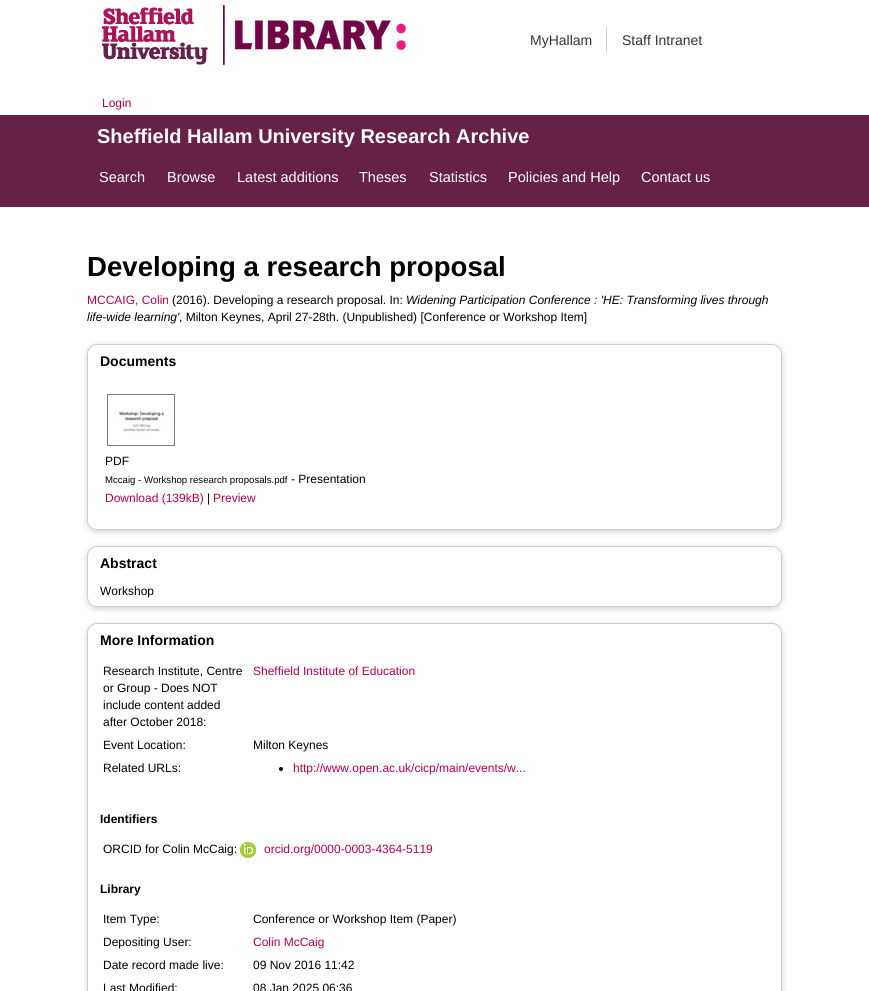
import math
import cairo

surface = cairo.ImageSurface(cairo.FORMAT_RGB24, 869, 991)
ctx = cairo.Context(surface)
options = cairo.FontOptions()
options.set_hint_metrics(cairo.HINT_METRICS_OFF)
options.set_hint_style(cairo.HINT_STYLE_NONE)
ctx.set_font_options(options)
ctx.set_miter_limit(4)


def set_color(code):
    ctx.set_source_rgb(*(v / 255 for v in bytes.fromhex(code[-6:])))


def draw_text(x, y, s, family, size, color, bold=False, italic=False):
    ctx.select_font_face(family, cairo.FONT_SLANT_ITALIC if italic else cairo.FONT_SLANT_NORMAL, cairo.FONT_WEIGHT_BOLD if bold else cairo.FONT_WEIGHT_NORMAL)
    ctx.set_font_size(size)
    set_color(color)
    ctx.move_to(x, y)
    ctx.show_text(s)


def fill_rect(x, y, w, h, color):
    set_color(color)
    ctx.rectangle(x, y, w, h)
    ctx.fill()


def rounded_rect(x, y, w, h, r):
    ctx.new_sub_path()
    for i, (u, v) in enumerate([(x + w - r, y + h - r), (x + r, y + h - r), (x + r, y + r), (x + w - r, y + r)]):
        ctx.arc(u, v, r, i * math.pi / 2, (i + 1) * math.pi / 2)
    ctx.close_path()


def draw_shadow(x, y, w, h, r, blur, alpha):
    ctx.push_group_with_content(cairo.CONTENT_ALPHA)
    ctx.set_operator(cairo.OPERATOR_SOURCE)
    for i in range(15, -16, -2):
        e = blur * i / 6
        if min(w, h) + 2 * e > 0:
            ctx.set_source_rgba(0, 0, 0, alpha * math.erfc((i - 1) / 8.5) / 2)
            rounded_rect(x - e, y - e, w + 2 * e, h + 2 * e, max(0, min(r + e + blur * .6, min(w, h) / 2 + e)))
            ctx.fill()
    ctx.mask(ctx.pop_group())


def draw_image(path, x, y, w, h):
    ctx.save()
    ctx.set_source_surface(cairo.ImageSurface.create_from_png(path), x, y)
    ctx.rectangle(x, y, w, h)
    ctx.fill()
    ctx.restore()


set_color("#ffffff")
ctx.paint()
draw_image("assets/img1.png", 102, 7, 106, 58)
draw_image("assets/img2.png", 223, 5, 183, 60)
draw_text(530, 45, "MyHallam", "Liberation Sans", 14, "#333333")
fill_rect(606, 27, 1, 25, "#cccccc")
draw_text(622, 45, "Staff Intranet", "Liberation Sans", 14, "#333333")
draw_text(102, 107, "Login", "Liberation Sans", 12, "#ba0046")
fill_rect(0, 115, 869, 92, "#672146")
draw_text(97, 143, "Sheffield Hallam University Research Archive", "Liberation Sans", 20, "#ffffff", bold=True)
draw_text(99, 182, "Search", "Liberation Sans", 14.5, "#ffffff")
draw_text(167, 182, "Browse", "Liberation Sans", 14.5, "#ffffff")
draw_text(237, 182, "Latest additions", "Liberation Sans", 14.5, "#ffffff")
draw_text(359, 182, "Theses", "Liberation Sans", 14.5, "#ffffff")
draw_text(429, 182, "Statistics", "Liberation Sans", 14.5, "#ffffff")
draw_text(508, 182, "Policies and Help", "Liberation Sans", 14.5, "#ffffff")
draw_text(641, 182, "Contact us", "Liberation Sans", 14.5, "#ffffff")
draw_text(87, 276, "Developing a research proposal", "Liberation Sans", 27.6, "#000000", bold=True)
draw_text(87, 304, "MCCAIG, Colin", "Liberation Sans", 12, "#ba0046")
draw_text(172, 304, "(2016). Developing a research proposal. In:", "Liberation Sans", 12, "#000000")
draw_text(406, 304, "Widening Participation Conference : 'HE: Transforming lives through", "Liberation Sans", 12, "#000000", italic=True)
draw_text(87, 321, "life-wide learning'", "Liberation Sans", 12, "#000000", italic=True)
draw_text(179, 321, ", Milton Keynes, April 27-28th. (Unpublished) [Conference or Workshop Item]", "Liberation Sans", 12, "#000000")
ctx.save()
ctx.set_fill_rule(cairo.FILL_RULE_EVEN_ODD)
ctx.new_path()
ctx.move_to(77, 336)
ctx.line_to(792, 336)
ctx.line_to(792, 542)
ctx.line_to(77, 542)
ctx.close_path()
ctx.move_to(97, 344)
ctx.line_to(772, 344)
ctx.curve_to(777.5, 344, 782, 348.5, 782, 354)
ctx.line_to(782, 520)
ctx.curve_to(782, 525.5, 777.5, 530, 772, 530)
ctx.line_to(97, 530)
ctx.curve_to(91.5, 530, 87, 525.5, 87, 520)
ctx.line_to(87, 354)
ctx.curve_to(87, 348.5, 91.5, 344, 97, 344)
ctx.close_path()
ctx.clip()
set_color("#646464")
draw_shadow(87, 346, 695, 186, 10, 3, 0.3)
ctx.restore()
rounded_rect(87.5, 344.5, 694, 185, 9.5)
set_color("#cccccc")
ctx.set_line_width(1)
ctx.stroke()
draw_text(100, 366, "Documents", "Liberation Sans", 14, "#000000", bold=True)
draw_image("assets/img3.png", 107, 394, 68, 52)
draw_text(105, 465, "PDF", "Liberation Sans", 12, "#000000")
draw_text(105, 483, "Mccaig - Workshop research proposals.pdf", "Liberation Sans", 9.6, "#000000")
draw_text(291, 483, "- Presentation", "Liberation Sans", 12, "#000000")
draw_text(105, 502, "Download (139kB)", "Liberation Sans", 12, "#ba0046")
draw_text(207, 502, "|", "Liberation Sans", 12, "#000000")
draw_text(213, 502, "Preview", "Liberation Sans", 12, "#ba0046")
ctx.save()
ctx.set_fill_rule(cairo.FILL_RULE_EVEN_ODD)
ctx.new_path()
ctx.move_to(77, 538)
ctx.line_to(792, 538)
ctx.line_to(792, 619)
ctx.line_to(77, 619)
ctx.close_path()
ctx.move_to(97, 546)
ctx.line_to(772, 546)
ctx.curve_to(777.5, 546, 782, 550.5, 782, 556)
ctx.line_to(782, 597)
ctx.curve_to(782, 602.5, 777.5, 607, 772, 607)
ctx.line_to(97, 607)
ctx.curve_to(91.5, 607, 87, 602.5, 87, 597)
ctx.line_to(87, 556)
ctx.curve_to(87, 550.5, 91.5, 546, 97, 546)
ctx.close_path()
ctx.clip()
set_color("#646464")
draw_shadow(87, 548, 695, 61, 10, 3, 0.3)
ctx.restore()
rounded_rect(87.5, 546.5, 694, 60, 9.5)
set_color("#cccccc")
ctx.stroke()
draw_text(100, 568, "Abstract", "Liberation Sans", 14, "#000000", bold=True)
draw_text(100, 595, "Workshop", "Liberation Sans", 12, "#000000")
ctx.save()
ctx.set_fill_rule(cairo.FILL_RULE_EVEN_ODD)
ctx.new_path()
ctx.move_to(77, 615)
ctx.line_to(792, 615)
ctx.line_to(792, 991)
ctx.line_to(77, 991)
ctx.close_path()
ctx.move_to(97, 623)
ctx.line_to(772, 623)
ctx.curve_to(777.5, 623, 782, 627.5, 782, 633)
ctx.line_to(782, 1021)
ctx.curve_to(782, 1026.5, 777.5, 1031, 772, 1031)
ctx.line_to(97, 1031)
ctx.curve_to(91.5, 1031, 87, 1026.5, 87, 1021)
ctx.line_to(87, 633)
ctx.curve_to(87, 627.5, 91.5, 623, 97, 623)
ctx.close_path()
ctx.clip()
set_color("#646464")
draw_shadow(87, 625, 695, 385, 10, 3, 0.3)
ctx.restore()
rounded_rect(87.5, 623.5, 694, 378, 9.5)
set_color("#cccccc")
ctx.stroke()
draw_text(100, 645, "More Information", "Liberation Sans", 14, "#000000", bold=True)
draw_text(103, 675, "Research Institute, Centre", "Liberation Sans", 12, "#000000")
draw_text(103, 692, "or Group - Does NOT", "Liberation Sans", 12, "#000000")
draw_text(103, 709, "include content added", "Liberation Sans", 12, "#000000")
draw_text(103, 726, "after October 2018:", "Liberation Sans", 12, "#000000")
draw_text(253, 675, "Sheffield Institute of Education", "Liberation Sans", 12, "#ba0046")
draw_text(103, 749, "Event Location:", "Liberation Sans", 12, "#000000")
draw_text(253, 749, "Milton Keynes", "Liberation Sans", 12, "#000000")
draw_text(103, 772, "Related URLs:", "Liberation Sans", 12, "#000000")
ctx.new_path()
ctx.arc(281, 769, 2, 0, 2 * math.pi)
ctx.fill()
draw_text(293, 772, "http://www.open.ac.uk/cicp/main/events/w...", "Liberation Sans", 12, "#ba0046")
draw_text(100, 823, "Identifiers", "Liberation Sans", 12, "#000000", bold=True)
draw_text(103, 853, "ORCID for Colin McCaig:", "Liberation Sans", 12, "#000000")
draw_image("assets/img4.png", 240, 842, 16, 16)
draw_text(264, 853, "orcid.org/0000-0003-4364-5119", "Liberation Sans", 12, "#ba0046")
draw_text(100, 893, "Library", "Liberation Sans", 12, "#000000", bold=True)
draw_text(103, 923, "Item Type:", "Liberation Sans", 12, "#000000")
draw_text(253, 923, "Conference or Workshop Item (Paper)", "Liberation Sans", 12, "#000000")
draw_text(103, 946, "Depositing User:", "Liberation Sans", 12, "#000000")
draw_text(253, 946, "Colin McCaig", "Liberation Sans", 12, "#ba0046")
draw_text(103, 969, "Date record made live:", "Liberation Sans", 12, "#000000")
draw_text(253, 969, "09 Nov 2016 11:42", "Liberation Sans", 12, "#000000")
draw_text(103, 992, "Last Modified:", "Liberation Sans", 12, "#000000")
draw_text(253, 992, "08 Jan 2025 06:36", "Liberation Sans", 12, "#000000")
surface.write_to_png("output.png")
